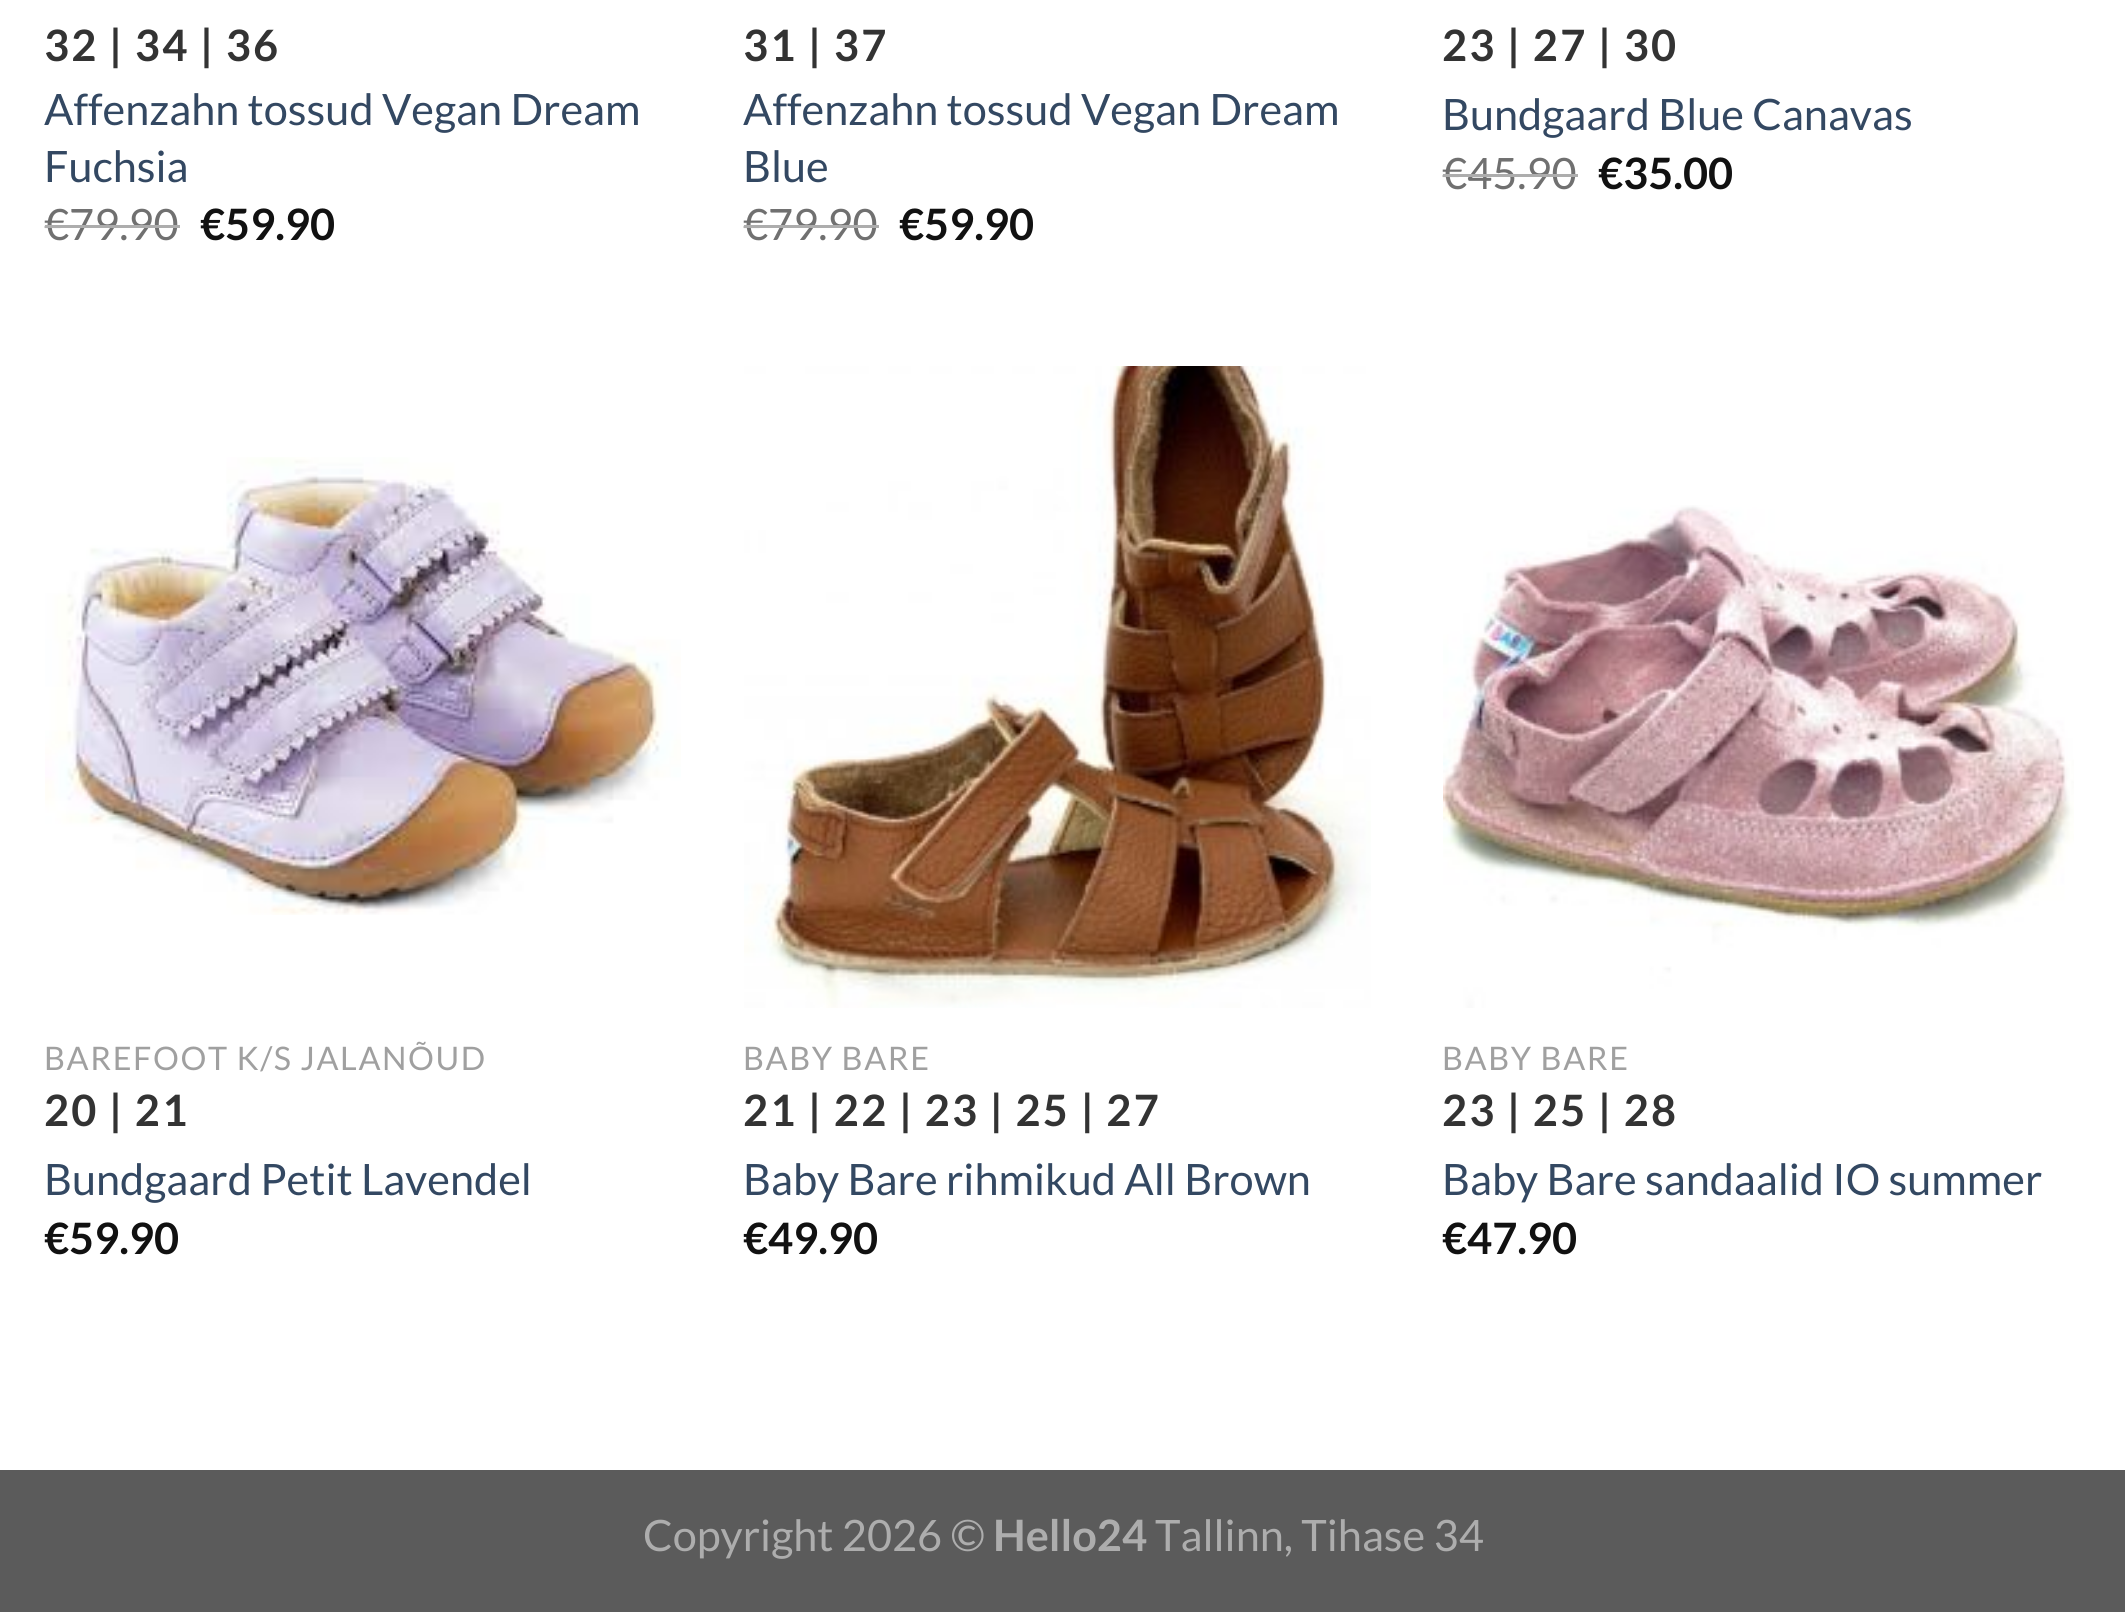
import math
import cairo

surface = cairo.ImageSurface(cairo.FORMAT_RGB24, 2125, 1612)
ctx = cairo.Context(surface)
options = cairo.FontOptions()
options.set_hint_metrics(cairo.HINT_METRICS_OFF)
options.set_hint_style(cairo.HINT_STYLE_NONE)
ctx.set_font_options(options)
ctx.set_miter_limit(4)


def set_color(code):
    ctx.set_source_rgb(*(v / 255 for v in bytes.fromhex(code[-6:])))


def draw_text(x, y, s, family, size, color, bold=False, italic=False):
    ctx.select_font_face(family, cairo.FONT_SLANT_ITALIC if italic else cairo.FONT_SLANT_NORMAL, cairo.FONT_WEIGHT_BOLD if bold else cairo.FONT_WEIGHT_NORMAL)
    ctx.set_font_size(size)
    set_color(color)
    ctx.move_to(x, y)
    ctx.show_text(s)


def draw_spaced(x, y, s, letter, word):
    ctx.move_to(x, y)
    for ch in s:
        ctx.show_text(ch)
        ctx.rel_move_to(letter + word * (ch == ' '), 0)


def fill_rect(x, y, w, h, color):
    set_color(color)
    ctx.rectangle(x, y, w, h)
    ctx.fill()


def draw_image(path, x, y, w, h):
    ctx.save()
    ctx.set_source_surface(cairo.ImageSurface.create_from_png(path), x, y)
    ctx.rectangle(x, y, w, h)
    ctx.fill()
    ctx.restore()


set_color("#ffffff")
ctx.paint()
ctx.select_font_face("Lato", cairo.FONT_SLANT_NORMAL, cairo.FONT_WEIGHT_BOLD)
ctx.set_font_size(43.25)
set_color("#333333")
draw_spaced(44, 61, "32 | 34 | 36", 2.2, 0)
draw_text(44, 125, "Affenzahn tossud Vegan Dream", "Lato", 43.25, "#334862")
draw_text(44, 182, "Fuchsia", "Lato", 43.25, "#334862")
draw_text(44, 240, "€79.90", "Lato", 43.25, "#707070")
fill_rect(45, 225, 135, 3, "#adadad")
draw_text(200, 240, "€59.90", "Lato", 43.25, "#111111", bold=True)
set_color("#333333")
draw_spaced(743, 61, "31 | 37", 2.2, 0)
draw_text(743, 125, "Affenzahn tossud Vegan Dream", "Lato", 43.25, "#334862")
draw_text(743, 182, "Blue", "Lato", 43.25, "#334862")
draw_text(743, 240, "€79.90", "Lato", 43.25, "#707070")
fill_rect(744, 225, 135, 3, "#adadad")
draw_text(899, 240, "€59.90", "Lato", 43.25, "#111111", bold=True)
set_color("#333333")
draw_spaced(1442, 61, "23 | 27 | 30", 2.2, 0)
draw_text(1442, 130, "Bundgaard Blue Canavas", "Lato", 43.25, "#334862")
draw_text(1442, 189, "€45.90", "Lato", 43.25, "#707070")
fill_rect(1443, 174, 135, 3, "#adadad")
draw_text(1598, 189, "€35.00", "Lato", 43.25, "#111111", bold=True)
draw_image("assets/img1.png", 45, 457, 636, 458)
ctx.select_font_face("Lato")
ctx.set_font_size(32.4)
set_color("#a0a0a0")
draw_spaced(44, 1070, "BAREFOOT K/S JALANÕUD", 1.6, 0)
ctx.select_font_face("Lato", cairo.FONT_SLANT_NORMAL, cairo.FONT_WEIGHT_BOLD)
ctx.set_font_size(43.25)
set_color("#333333")
draw_spaced(44, 1126, "20 | 21", 2.2, 0)
draw_text(44, 1195, "Bundgaard Petit Lavendel", "Lato", 43.25, "#334862")
draw_text(44, 1254, "€59.90", "Lato", 43.25, "#111111", bold=True)
draw_image("assets/img2.png", 744, 366, 627, 642)
ctx.select_font_face("Lato")
ctx.set_font_size(32.4)
set_color("#a0a0a0")
draw_spaced(743, 1070, "BABY BARE", 1.6, 0)
ctx.select_font_face("Lato", cairo.FONT_SLANT_NORMAL, cairo.FONT_WEIGHT_BOLD)
ctx.set_font_size(43.25)
set_color("#333333")
draw_spaced(743, 1126, "21 | 22 | 23 | 25 | 27", 2.2, 0)
draw_text(743, 1195, "Baby Bare rihmikud All Brown", "Lato", 43.25, "#334862")
draw_text(743, 1254, "€49.90", "Lato", 43.25, "#111111", bold=True)
draw_image("assets/img3.png", 1443, 505, 631, 503)
ctx.select_font_face("Lato")
ctx.set_font_size(32.4)
set_color("#a0a0a0")
draw_spaced(1442, 1070, "BABY BARE", 1.6, 0)
ctx.select_font_face("Lato", cairo.FONT_SLANT_NORMAL, cairo.FONT_WEIGHT_BOLD)
ctx.set_font_size(43.25)
set_color("#333333")
draw_spaced(1442, 1126, "23 | 25 | 28", 2.2, 0)
draw_text(1442, 1195, "Baby Bare sandaalid IO summer", "Lato", 43.25, "#334862")
draw_text(1442, 1254, "€47.90", "Lato", 43.25, "#111111", bold=True)
fill_rect(0, 1470, 2125, 142, "#5b5b5b")
draw_text(643, 1551, "Copyright 2026 ©", "Lato", 43.25, "#adadad")
draw_text(993, 1551, "Hello24", "Lato", 43.25, "#adadad", bold=True)
draw_text(1155, 1551, "Tallinn, Tihase 34", "Lato", 43.25, "#adadad")
surface.write_to_png("output.png")
